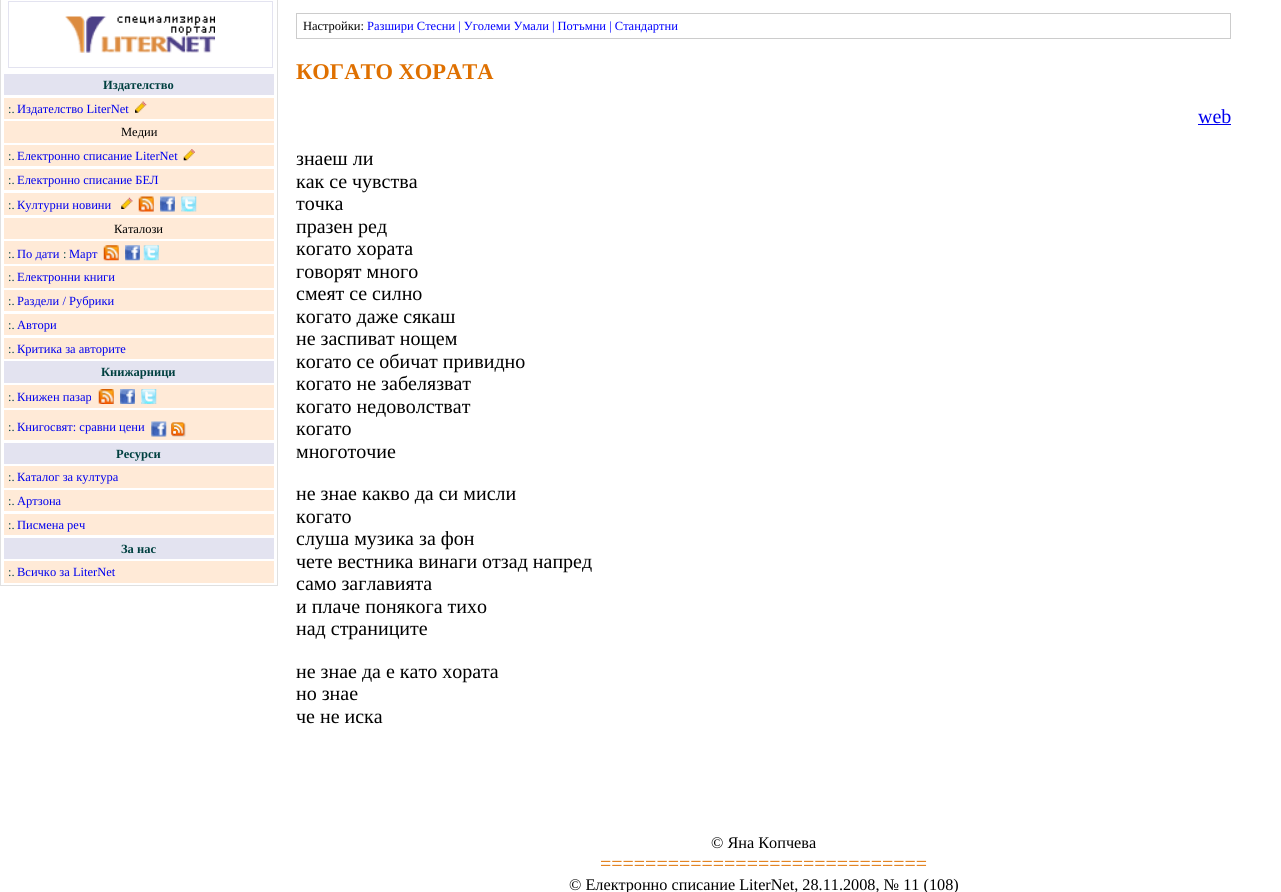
import math
import cairo

surface = cairo.ImageSurface(cairo.FORMAT_RGB24, 1281, 892)
ctx = cairo.Context(surface)
options = cairo.FontOptions()
options.set_hint_metrics(cairo.HINT_METRICS_OFF)
options.set_hint_style(cairo.HINT_STYLE_NONE)
ctx.set_font_options(options)
ctx.set_miter_limit(4)


def set_color(code):
    ctx.set_source_rgb(*(v / 255 for v in bytes.fromhex(code[-6:])))


def draw_text(x, y, s, family, size, color, bold=False, italic=False):
    ctx.select_font_face(family, cairo.FONT_SLANT_ITALIC if italic else cairo.FONT_SLANT_NORMAL, cairo.FONT_WEIGHT_BOLD if bold else cairo.FONT_WEIGHT_NORMAL)
    ctx.set_font_size(size)
    set_color(color)
    ctx.move_to(x, y)
    ctx.show_text(s)


def fill_rect(x, y, w, h, color):
    set_color(color)
    ctx.rectangle(x, y, w, h)
    ctx.fill()


def draw_image(path, x, y, w, h):
    ctx.save()
    ctx.set_source_surface(cairo.ImageSurface.create_from_png(path), x, y)
    ctx.rectangle(x, y, w, h)
    ctx.fill()
    ctx.restore()


set_color("#ffffff")
ctx.paint()
ctx.rectangle(0.5, -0.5, 277, 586)
set_color("#e0e0e0")
ctx.set_line_width(1)
ctx.stroke()
ctx.rectangle(8.5, 1.5, 264, 66)
set_color("#e3e3f0")
ctx.stroke()
draw_image("assets/img1.png", 65, 16, 150, 37)
fill_rect(4, 74, 270, 21, "#e3e3f0")
draw_text(103, 89, "Издателство", "Liberation Serif", 12.5, "#004040", bold=True)
fill_rect(4, 98, 270, 21, "#ffead7")
draw_text(8, 113, ":.", "Liberation Serif", 12.5, "#004040")
draw_text(17, 113, "Издателство LiterNet", "Liberation Serif", 12.5, "#0000ee")
draw_image("assets/img2.png", 135, 101, 12, 12)
fill_rect(4, 121, 270, 22, "#ffead7")
draw_text(121, 136, "Медии", "Liberation Serif", 12.5, "#000000")
fill_rect(4, 145, 270, 21, "#ffead7")
draw_text(8, 160, ":.", "Liberation Serif", 12.5, "#004040")
draw_text(17, 160, "Електронно списание LiterNet", "Liberation Serif", 12.5, "#0000ee")
draw_image("assets/img3.png", 183, 149, 12, 12)
fill_rect(4, 169, 270, 21, "#ffead7")
draw_text(8, 184, ":.", "Liberation Serif", 12.5, "#004040")
draw_text(17, 184, "Електронно списание БЕЛ", "Liberation Serif", 12.5, "#0000ee")
fill_rect(4, 193, 270, 22, "#ffead7")
draw_text(8, 209, ":.", "Liberation Serif", 12.5, "#004040")
draw_text(17, 209, "Културни новини", "Liberation Serif", 12.5, "#0000ee")
draw_image("assets/img4.png", 121, 197, 12, 12)
draw_image("assets/img5.png", 138, 196, 16, 16)
draw_image("assets/img6.png", 160, 196, 15, 16)
draw_image("assets/img7.png", 181, 196, 16, 16)
fill_rect(4, 218, 270, 21, "#ffead7")
draw_text(114, 233, "Каталози", "Liberation Serif", 12.5, "#000000")
fill_rect(4, 241, 270, 23, "#ffead7")
draw_text(8, 258, ":.", "Liberation Serif", 12.5, "#004040")
draw_text(17, 258, "По дати", "Liberation Serif", 12.5, "#0000ee")
draw_text(63, 258, ":", "Liberation Serif", 12.5, "#004040")
draw_text(69, 258, "Март", "Liberation Serif", 12.5, "#0000ee")
draw_image("assets/img8.png", 103, 245, 16, 16)
draw_image("assets/img9.png", 125, 245, 15, 16)
draw_image("assets/img10.png", 143, 245, 16, 16)
fill_rect(4, 266, 270, 22, "#ffead7")
draw_text(8, 281, ":.", "Liberation Serif", 12.5, "#004040")
draw_text(17, 281, "Електронни книги", "Liberation Serif", 12.5, "#0000ee")
fill_rect(4, 290, 270, 21, "#ffead7")
draw_text(8, 305, ":.", "Liberation Serif", 12.5, "#004040")
draw_text(17, 305, "Раздели / Рубрики", "Liberation Serif", 12.5, "#0000ee")
fill_rect(4, 314, 270, 21, "#ffead7")
draw_text(8, 329, ":.", "Liberation Serif", 12.5, "#004040")
draw_text(17, 329, "Автори", "Liberation Serif", 12.5, "#0000ee")
fill_rect(4, 338, 270, 21, "#ffead7")
draw_text(8, 353, ":.", "Liberation Serif", 12.5, "#004040")
draw_text(17, 353, "Критика за авторите", "Liberation Serif", 12.5, "#0000ee")
fill_rect(4, 361, 270, 22, "#e3e3f0")
draw_text(101, 376, "Книжарници", "Liberation Serif", 12.5, "#004040", bold=True)
fill_rect(4, 385, 270, 23, "#ffead7")
draw_text(8, 401, ":.", "Liberation Serif", 12.5, "#004040")
draw_text(17, 401, "Книжен пазар", "Liberation Serif", 12.5, "#0000ee")
draw_image("assets/img11.png", 98, 389, 16, 15)
draw_image("assets/img12.png", 120, 389, 15, 15)
draw_image("assets/img13.png", 141, 389, 16, 15)
fill_rect(4, 410, 270, 30, "#ffead7")
draw_text(8, 431, ":.", "Liberation Serif", 12.5, "#004040")
draw_text(17, 431, "Книгосвят: сравни цени", "Liberation Serif", 12.5, "#0000ee")
draw_image("assets/img14.png", 151, 421, 16, 16)
draw_image("assets/img15.png", 171, 422, 15, 15)
fill_rect(4, 443, 270, 21, "#e3e3f0")
draw_text(116, 458, "Ресурси", "Liberation Serif", 12.5, "#004040", bold=True)
fill_rect(4, 466, 270, 22, "#ffead7")
draw_text(8, 481, ":.", "Liberation Serif", 12.5, "#004040")
draw_text(17, 481, "Каталог за култура", "Liberation Serif", 12.5, "#0000ee")
fill_rect(4, 490, 270, 21, "#ffead7")
draw_text(8, 505, ":.", "Liberation Serif", 12.5, "#004040")
draw_text(17, 505, "Артзона", "Liberation Serif", 12.5, "#0000ee")
fill_rect(4, 514, 270, 21, "#ffead7")
draw_text(8, 529, ":.", "Liberation Serif", 12.5, "#004040")
draw_text(17, 529, "Писмена реч", "Liberation Serif", 12.5, "#0000ee")
fill_rect(4, 538, 270, 21, "#e3e3f0")
draw_text(121, 553, "За нас", "Liberation Serif", 12.5, "#004040", bold=True)
fill_rect(4, 561, 270, 22, "#ffead7")
draw_text(8, 576, ":.", "Liberation Serif", 12.5, "#004040")
draw_text(17, 576, "Всичко за LiterNet", "Liberation Serif", 12.5, "#0000ee")
ctx.rectangle(296.5, 13.5, 934, 25)
set_color("#cccccc")
ctx.stroke()
draw_text(303, 30, "Настройки:", "Liberation Serif", 12.5, "#000000")
draw_text(367, 30, "Разшири Стесни | Уголеми Умали | Потъмни | Стандартни", "Liberation Serif", 12.5, "#0000ff")
draw_text(296, 79, "КОГАТО ХОРАТА", "Liberation Serif", 22.5, "#df7000", bold=True)
draw_text(1198, 123, "web", "Liberation Serif", 20, "#0000ee")
fill_rect(1198, 124, 33, 1, "#0000ee")
draw_text(296, 165, "знаеш ли", "Liberation Serif", 20, "#000000")
draw_text(296, 188, "как се чувства", "Liberation Serif", 20, "#000000")
draw_text(296, 210, "точка", "Liberation Serif", 20, "#000000")
draw_text(296, 233, "празен ред", "Liberation Serif", 20, "#000000")
draw_text(296, 255, "когато хората", "Liberation Serif", 20, "#000000")
draw_text(296, 278, "говорят много", "Liberation Serif", 20, "#000000")
draw_text(296, 300, "смеят се силно", "Liberation Serif", 20, "#000000")
draw_text(296, 323, "когато даже сякаш", "Liberation Serif", 20, "#000000")
draw_text(296, 345, "не заспиват нощем", "Liberation Serif", 20, "#000000")
draw_text(296, 368, "когато се обичат привидно", "Liberation Serif", 20, "#000000")
draw_text(296, 390, "когато не забелязват", "Liberation Serif", 20, "#000000")
draw_text(296, 413, "когато недоволстват", "Liberation Serif", 20, "#000000")
draw_text(296, 435, "когато", "Liberation Serif", 20, "#000000")
draw_text(296, 458, "многоточие", "Liberation Serif", 20, "#000000")
draw_text(296, 500, "не знае какво да си мисли", "Liberation Serif", 20, "#000000")
draw_text(296, 523, "когато", "Liberation Serif", 20, "#000000")
draw_text(296, 545, "слуша музика за фон", "Liberation Serif", 20, "#000000")
draw_text(296, 568, "чете вестника винаги отзад напред", "Liberation Serif", 20, "#000000")
draw_text(296, 590, "само заглавията", "Liberation Serif", 20, "#000000")
draw_text(296, 613, "и плаче понякога тихо", "Liberation Serif", 20, "#000000")
draw_text(296, 635, "над страниците", "Liberation Serif", 20, "#000000")
draw_text(296, 678, "не знае да е като хората", "Liberation Serif", 20, "#000000")
draw_text(296, 700, "но знае", "Liberation Serif", 20, "#000000")
draw_text(296, 723, "че не иска", "Liberation Serif", 20, "#000000")
draw_text(711, 848, "© Яна Копчева", "Liberation Serif", 16.25, "#000000")
draw_text(600, 870, "=============================", "Liberation Serif", 20, "#df7000")
draw_text(569, 890, "© Електронно списание LiterNet, 28.11.2008, № 11 (108)", "Liberation Serif", 16.25, "#000000")
surface.write_to_png("output.png")
